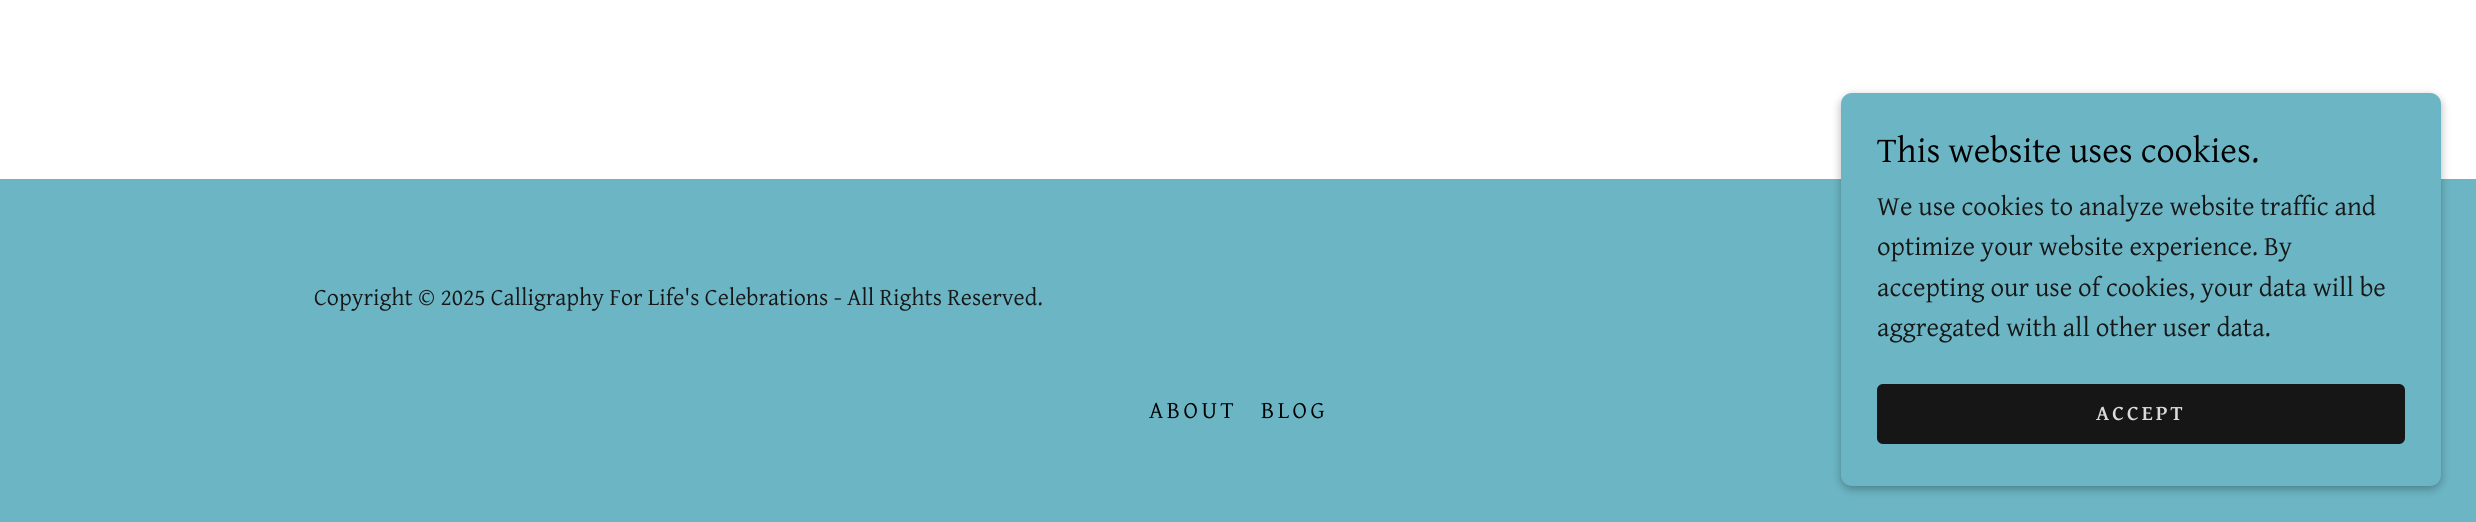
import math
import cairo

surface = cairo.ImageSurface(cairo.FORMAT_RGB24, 2476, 522)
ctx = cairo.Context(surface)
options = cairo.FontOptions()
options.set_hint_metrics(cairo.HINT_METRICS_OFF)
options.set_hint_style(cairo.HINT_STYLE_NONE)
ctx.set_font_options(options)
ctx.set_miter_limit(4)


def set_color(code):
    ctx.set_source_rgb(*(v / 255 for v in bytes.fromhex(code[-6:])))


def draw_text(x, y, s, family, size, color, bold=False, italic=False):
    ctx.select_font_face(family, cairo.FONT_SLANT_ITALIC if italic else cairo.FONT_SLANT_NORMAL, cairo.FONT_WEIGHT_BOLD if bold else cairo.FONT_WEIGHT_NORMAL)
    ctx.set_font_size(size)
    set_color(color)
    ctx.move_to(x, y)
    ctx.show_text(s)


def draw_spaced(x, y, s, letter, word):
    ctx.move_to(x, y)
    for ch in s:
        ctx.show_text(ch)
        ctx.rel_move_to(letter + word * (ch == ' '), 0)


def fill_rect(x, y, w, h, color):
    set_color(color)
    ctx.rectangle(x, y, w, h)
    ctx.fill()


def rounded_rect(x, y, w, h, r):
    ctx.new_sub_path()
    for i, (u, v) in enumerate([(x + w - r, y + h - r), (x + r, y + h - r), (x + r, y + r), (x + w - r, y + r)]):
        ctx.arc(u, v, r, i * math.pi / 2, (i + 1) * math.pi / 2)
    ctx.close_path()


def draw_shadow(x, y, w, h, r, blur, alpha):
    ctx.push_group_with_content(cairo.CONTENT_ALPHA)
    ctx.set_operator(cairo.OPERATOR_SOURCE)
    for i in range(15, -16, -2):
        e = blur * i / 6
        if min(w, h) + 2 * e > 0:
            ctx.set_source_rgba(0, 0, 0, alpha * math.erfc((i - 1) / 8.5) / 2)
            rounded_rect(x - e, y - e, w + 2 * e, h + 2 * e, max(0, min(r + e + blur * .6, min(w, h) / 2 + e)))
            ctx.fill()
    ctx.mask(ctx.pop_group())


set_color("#6cb5c4")
ctx.paint()
fill_rect(0, 0, 2476, 179, "#ffffff")
draw_text(314, 305, "Copyright © 2025 Calligraphy For Life's Celebrations - All Rights Reserved.", "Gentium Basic", 24, "#161717")
set_color("#000000")
draw_spaced(1149, 418, "ABOUT", 3.5, 0)
draw_spaced(1261, 418, "BLOG", 3.5, 0)
set_color("#000000")
draw_shadow(1841, 96, 600, 393, 11, 4.5, 0.3)
set_color("#6cb5c4")
rounded_rect(1841, 93, 600, 393, 11)
ctx.fill()
draw_text(1877, 162, "This website uses cookies.", "Gentium Basic", 36, "#000000")
draw_text(1877, 215, "We use cookies to analyze website traffic and", "Gentium Basic", 27, "#161717")
draw_text(1877, 255, "optimize your website experience. By", "Gentium Basic", 27, "#161717")
draw_text(1877, 296, "accepting our use of cookies, your data will be", "Gentium Basic", 27, "#161717")
draw_text(1877, 336, "aggregated with all other user data.", "Gentium Basic", 27, "#161717")
set_color("#161616")
rounded_rect(1877, 384, 528, 60, 6)
ctx.fill()
ctx.select_font_face("Gentium Basic", cairo.FONT_SLANT_NORMAL, cairo.FONT_WEIGHT_BOLD)
ctx.set_font_size(21)
set_color("#dbdbdb")
draw_spaced(2096, 420, "ACCEPT", 3, 0)
surface.write_to_png("output.png")
